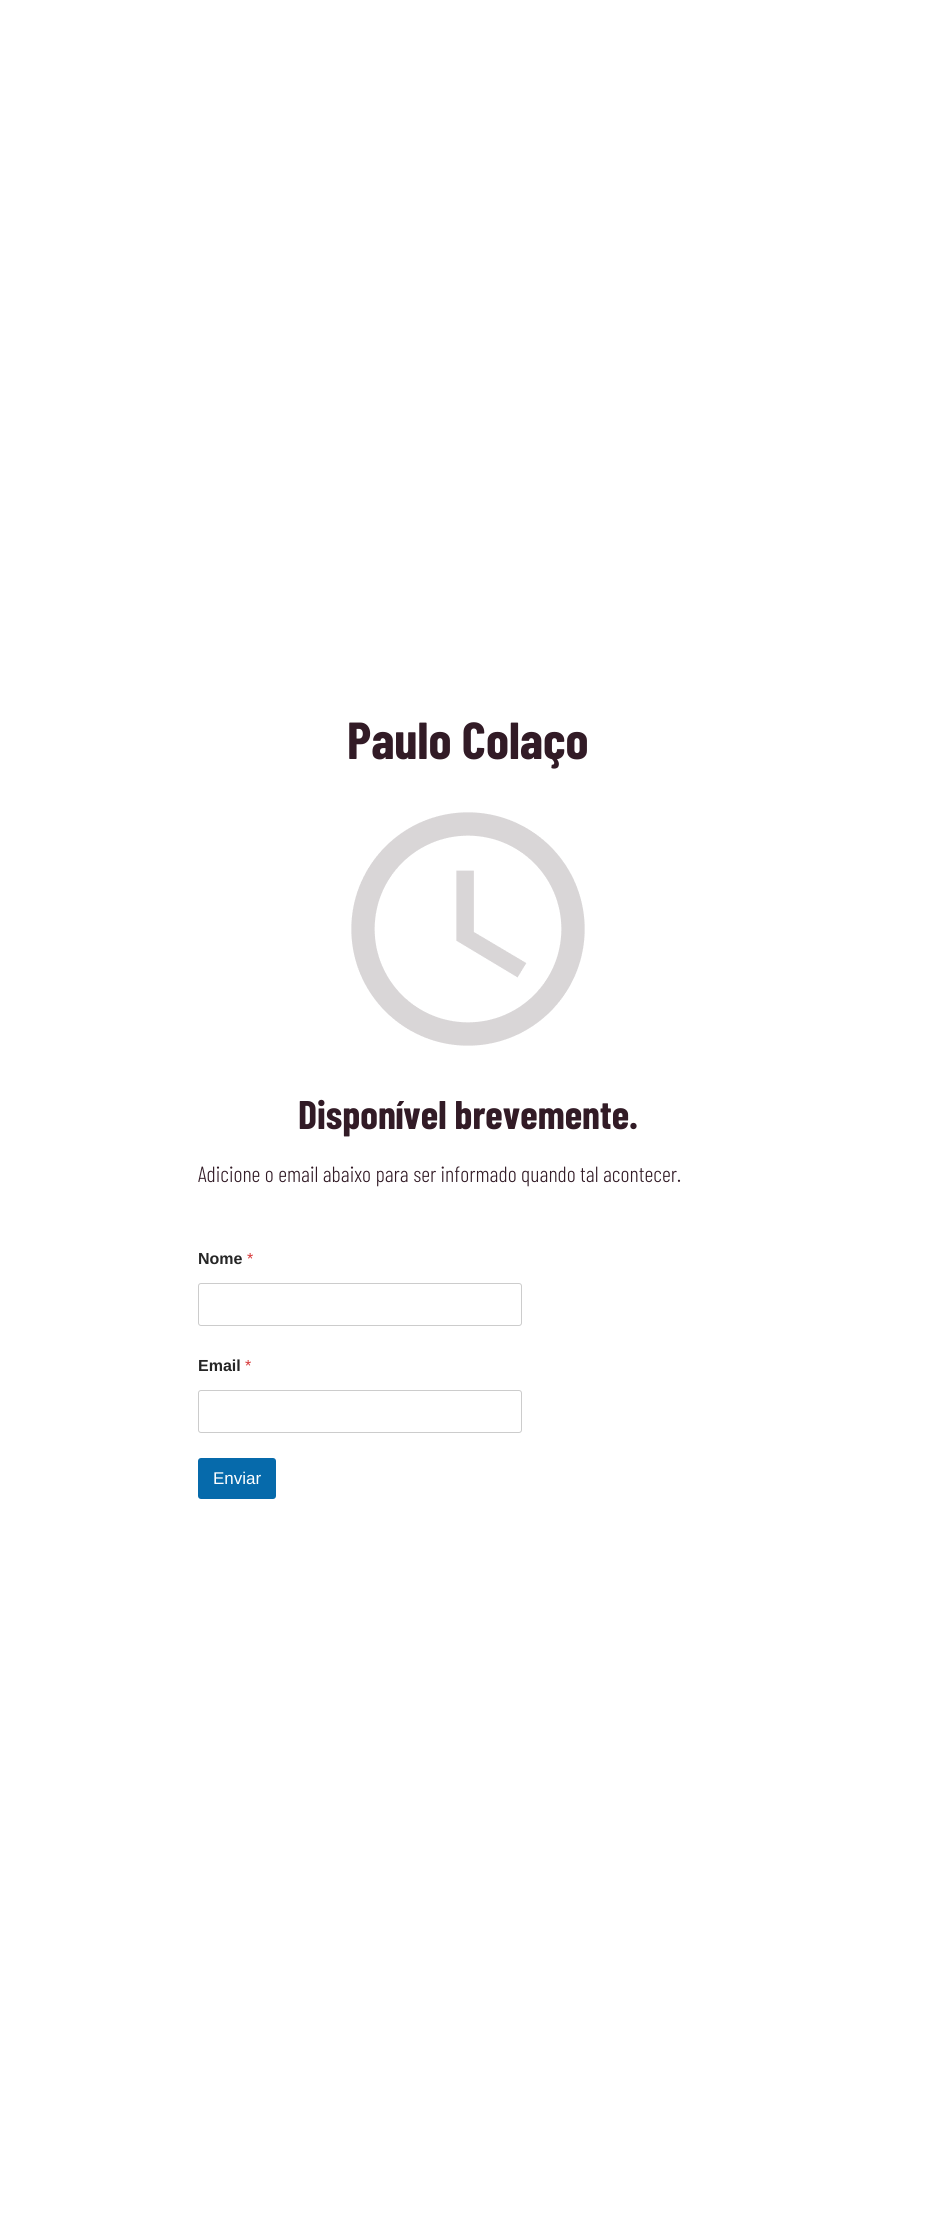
import math
import cairo

surface = cairo.ImageSurface(cairo.FORMAT_RGB24, 936, 2230)
ctx = cairo.Context(surface)
options = cairo.FontOptions()
options.set_hint_metrics(cairo.HINT_METRICS_OFF)
options.set_hint_style(cairo.HINT_STYLE_NONE)
ctx.set_font_options(options)
ctx.set_miter_limit(4)


def set_color(code):
    ctx.set_source_rgb(*(v / 255 for v in bytes.fromhex(code[-6:])))


def draw_text(x, y, s, family, size, color, bold=False, italic=False):
    ctx.select_font_face(family, cairo.FONT_SLANT_ITALIC if italic else cairo.FONT_SLANT_NORMAL, cairo.FONT_WEIGHT_BOLD if bold else cairo.FONT_WEIGHT_NORMAL)
    ctx.set_font_size(size)
    set_color(color)
    ctx.move_to(x, y)
    ctx.show_text(s)


def rounded_rect(x, y, w, h, r):
    ctx.new_sub_path()
    for i, (u, v) in enumerate([(x + w - r, y + h - r), (x + r, y + h - r), (x + r, y + r), (x + w - r, y + r)]):
        ctx.arc(u, v, r, i * math.pi / 2, (i + 1) * math.pi / 2)
    ctx.close_path()


def draw_image(path, x, y, w, h):
    ctx.save()
    ctx.set_source_surface(cairo.ImageSurface.create_from_png(path), x, y)
    ctx.rectangle(x, y, w, h)
    ctx.fill()
    ctx.restore()


set_color("#ffffff")
ctx.paint()
draw_text(347, 759, "Paulo Colaço", "Barlow Condensed", 52, "#321b26", bold=True)
draw_image("assets/img1.png", 351, 812, 234, 234)
draw_text(298, 1129, "Disponível brevemente.", "Barlow Condensed", 40, "#321b26", bold=True)
draw_text(198, 1182, "Adicione o email abaixo para ser informado quando tal acontecer.", "Barlow Condensed Light", 22, "#321b26")
draw_text(198, 1264, "Nome", "Liberation Sans", 16, "#262626", bold=True)
draw_text(247, 1264, "*", "Liberation Sans", 16, "#d63637")
rounded_rect(198.5, 1283.5, 323, 42, 2.5)
set_color("#cccccc")
ctx.set_line_width(1)
ctx.stroke()
draw_text(198, 1371, "Email", "Liberation Sans", 16, "#262626", bold=True)
draw_text(245, 1371, "*", "Liberation Sans", 16, "#d63637")
rounded_rect(198.5, 1390.5, 323, 42, 2.5)
set_color("#cccccc")
ctx.stroke()
set_color("#066aab")
rounded_rect(198, 1458, 78, 41, 3)
ctx.fill()
draw_text(213, 1484, "Enviar", "Liberation Sans", 17, "#ffffff")
surface.write_to_png("output.png")
